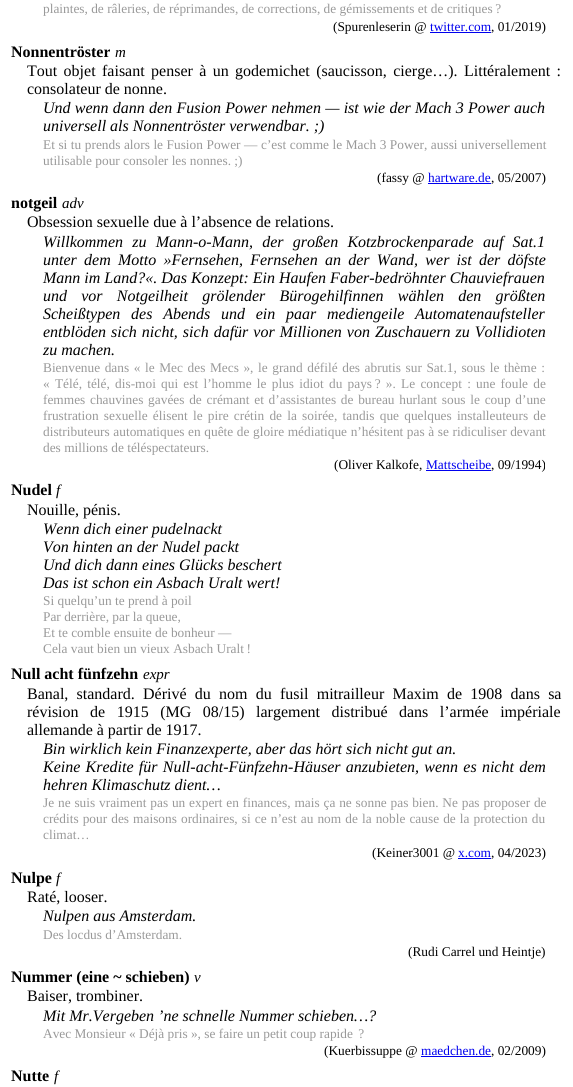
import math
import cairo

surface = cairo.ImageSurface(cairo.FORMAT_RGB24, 573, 1087)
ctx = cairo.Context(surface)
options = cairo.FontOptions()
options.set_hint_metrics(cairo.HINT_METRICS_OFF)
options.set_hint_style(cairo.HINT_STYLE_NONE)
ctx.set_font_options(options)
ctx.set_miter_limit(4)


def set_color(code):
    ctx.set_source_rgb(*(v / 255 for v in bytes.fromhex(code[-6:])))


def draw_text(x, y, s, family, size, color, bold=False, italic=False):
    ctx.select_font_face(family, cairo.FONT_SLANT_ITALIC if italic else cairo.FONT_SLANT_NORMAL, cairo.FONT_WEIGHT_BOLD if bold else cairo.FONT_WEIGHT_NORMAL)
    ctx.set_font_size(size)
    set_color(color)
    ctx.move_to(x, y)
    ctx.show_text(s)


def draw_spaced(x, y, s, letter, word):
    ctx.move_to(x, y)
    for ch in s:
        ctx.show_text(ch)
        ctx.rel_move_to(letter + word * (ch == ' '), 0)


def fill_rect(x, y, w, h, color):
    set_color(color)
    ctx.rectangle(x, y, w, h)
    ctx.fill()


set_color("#ffffff")
ctx.paint()
draw_text(43, 13, "plaintes, de râleries, de réprimandes, de corrections, de gémissements et de critiques ?", "Liberation Serif", 13.35, "#999999")
draw_text(333, 31, "(Spurenleserin @", "Liberation Serif", 13.35, "#000000")
draw_text(430, 31, "twitter.com", "Liberation Serif", 13.35, "#0000ee")
fill_rect(430, 32, 61, 1, "#0000ee")
draw_text(491, 31, ", 01/2019)", "Liberation Serif", 13.35, "#000000")
draw_text(11, 57, "Nonnentröster", "Liberation Serif", 16, "#000000", bold=True)
draw_text(115, 57, "m", "Liberation Serif", 15, "#000000", italic=True)
ctx.select_font_face("Liberation Serif")
ctx.set_font_size(16)
draw_spaced(27, 76, "Tout objet faisant penser à un godemichet (saucisson, cierge…). Littéralement :", 0, 2.4)
draw_text(27, 94, "consolateur de nonne.", "Liberation Serif", 16, "#000000")
ctx.select_font_face("Liberation Serif", cairo.FONT_SLANT_ITALIC)
draw_spaced(43, 113, "Und wenn dann den Fusion Power nehmen — ist wie der Mach 3 Power auch", 0, 0.25)
draw_text(43, 131, "universell als Nonnentröster verwendbar. ;)", "Liberation Serif", 16, "#000000", italic=True)
ctx.select_font_face("Liberation Serif")
ctx.set_font_size(13.35)
set_color("#999999")
draw_spaced(43, 149, "Et si tu prends alors le Fusion Power — c’est comme le Mach 3 Power, aussi universellement", 0, 0.2)
draw_text(43, 165, "utilisable pour consoler les nonnes. ;)", "Liberation Serif", 13.35, "#999999")
draw_text(377, 182, "(fassy @", "Liberation Serif", 13.35, "#000000")
draw_text(428, 182, "hartware.de", "Liberation Serif", 13.35, "#0000ee")
fill_rect(428, 183, 63, 1, "#0000ee")
draw_text(491, 182, ", 05/2007)", "Liberation Serif", 13.35, "#000000")
draw_text(11, 208, "notgeil", "Liberation Serif", 16, "#000000", bold=True)
draw_text(62, 208, "adv", "Liberation Serif", 15, "#000000", italic=True)
draw_text(27, 227, "Obsession sexuelle due à l’absence de relations.", "Liberation Serif", 16, "#000000")
ctx.select_font_face("Liberation Serif", cairo.FONT_SLANT_ITALIC)
draw_spaced(43, 247, "Willkommen zu Mann-o-Mann, der großen Kotzbrockenparade auf Sat.1", 0, 5.25)
draw_spaced(43, 265, "unter dem Motto »Fernsehen, Fernsehen an der Wand, wer ist der döfste", 0, 3.25)
draw_text(43, 283, "Mann im Land?«. Das Konzept: Ein Haufen Faber-bedröhnter Chauviefrauen", "Liberation Serif", 16, "#000000", italic=True)
draw_spaced(43, 301, "und vor Notgeilheit grölender Bürogehilfinnen wählen den größten", 0, 10.25)
draw_spaced(43, 319, "Scheißtypen des Abends und ein paar mediengeile Automatenaufsteller", 0, 6.75)
draw_spaced(43, 337, "entblöden sich nicht, sich dafür vor Millionen von Zuschauern zu Vollidioten", 0, 1)
draw_text(43, 355, "zu machen.", "Liberation Serif", 16, "#000000", italic=True)
ctx.select_font_face("Liberation Serif")
ctx.set_font_size(13.35)
set_color("#999999")
draw_spaced(43, 372, "Bienvenue dans « le Mec des Mecs », le grand défilé des abrutis sur Sat.1, sous le thème :", 0, 1.25)
draw_spaced(43, 388, "« Télé, télé, dis-moi qui est l’homme le plus idiot du pays ? ». Le concept : une foule de", 0, 1.9)
draw_spaced(43, 404, "femmes chauvines gavées de crémant et d’assistantes de bureau hurlant sous le coup d’une", 0, 1.4)
draw_spaced(43, 420, "frustration sexuelle élisent le pire crétin de la soirée, tandis que quelques installeuteurs de", 0, 1.9)
draw_spaced(43, 436, "distributeurs automatiques en quête de gloire médiatique n’hésitent pas à se ridiculiser devant", 0, 0.25)
draw_text(43, 452, "des millions de téléspectateurs.", "Liberation Serif", 13.35, "#999999")
draw_text(334, 469, "(Oliver Kalkofe,", "Liberation Serif", 13.35, "#000000")
draw_text(426, 469, "Mattscheibe", "Liberation Serif", 13.35, "#0000ee")
fill_rect(426, 470, 65, 1, "#0000ee")
draw_text(491, 469, ", 09/1994)", "Liberation Serif", 13.35, "#000000")
draw_text(11, 495, "Nudel", "Liberation Serif", 16, "#000000", bold=True)
draw_text(56, 495, "f", "Liberation Serif", 15, "#000000", italic=True)
draw_text(27, 515, "Nouille, pénis.", "Liberation Serif", 16, "#000000")
draw_text(43, 534, "Wenn dich einer pudelnackt", "Liberation Serif", 16, "#000000", italic=True)
draw_text(43, 552, "Von hinten an der Nudel packt", "Liberation Serif", 16, "#000000", italic=True)
draw_text(43, 570, "Und dich dann eines Glücks beschert", "Liberation Serif", 16, "#000000", italic=True)
draw_text(43, 588, "Das ist schon ein Asbach Uralt wert!", "Liberation Serif", 16, "#000000", italic=True)
draw_text(43, 605, "Si quelqu’un te prend à poil", "Liberation Serif", 13.35, "#999999")
draw_text(43, 621, "Par derrière, par la queue,", "Liberation Serif", 13.35, "#999999")
draw_text(43, 637, "Et te comble ensuite de bonheur —", "Liberation Serif", 13.35, "#999999")
draw_text(43, 653, "Cela vaut bien un vieux Asbach Uralt !", "Liberation Serif", 13.35, "#999999")
draw_text(11, 679, "Null acht fünfzehn", "Liberation Serif", 16, "#000000", bold=True)
draw_text(143, 679, "expr", "Liberation Serif", 15, "#000000", italic=True)
ctx.select_font_face("Liberation Serif")
ctx.set_font_size(16)
draw_spaced(27, 699, "Banal, standard. Dérivé du nom du fusil mitrailleur Maxim de 1908 dans sa", 0, 4.25)
draw_spaced(27, 717, "révision de 1915 (MG 08/15) largement distribué dans l’armée impériale", 0, 7.5)
draw_text(27, 735, "allemande à partir de 1917.", "Liberation Serif", 16, "#000000")
draw_text(43, 754, "Bin wirklich kein Finanzexperte, aber das hört sich nicht gut an.", "Liberation Serif", 16, "#000000", italic=True)
draw_spaced(43, 772, "Keine Kredite für Null-acht-Fünfzehn-Häuser anzubieten, wenn es nicht dem", 0, 1.25)
draw_text(43, 790, "hehren Klimaschutz dient…", "Liberation Serif", 16, "#000000", italic=True)
ctx.select_font_face("Liberation Serif")
ctx.set_font_size(13.35)
set_color("#999999")
draw_spaced(43, 807, "Je ne suis vraiment pas un expert en finances, mais ça ne sonne pas bien. Ne pas proposer de", 0, 0.5)
draw_spaced(43, 823, "crédits pour des maisons ordinaires, si ce n’est au nom de la noble cause de la protection du", 0, 0.75)
draw_text(43, 839, "climat…", "Liberation Serif", 13.35, "#999999")
draw_text(372, 857, "(Keiner3001 @", "Liberation Serif", 13.35, "#000000")
draw_text(458, 857, "x.com", "Liberation Serif", 13.35, "#0000ee")
fill_rect(458, 858, 33, 1, "#0000ee")
draw_text(491, 857, ", 04/2023)", "Liberation Serif", 13.35, "#000000")
draw_text(11, 883, "Nulpe", "Liberation Serif", 16, "#000000", bold=True)
draw_text(56, 883, "f", "Liberation Serif", 15, "#000000", italic=True)
draw_text(27, 902, "Raté, looser.", "Liberation Serif", 16, "#000000")
draw_text(43, 921, "Nulpen aus Amsterdam.", "Liberation Serif", 16, "#000000", italic=True)
draw_text(43, 939, "Des locdus d’Amsterdam.", "Liberation Serif", 13.35, "#999999")
draw_text(408, 956, "(Rudi Carrel und Heintje)", "Liberation Serif", 13.35, "#000000")
draw_text(11, 982, "Nummer (eine ~ schieben)", "Liberation Serif", 16, "#000000", bold=True)
draw_text(194, 982, "v", "Liberation Serif", 15, "#000000", italic=True)
draw_text(27, 1001, "Baiser, trombiner.", "Liberation Serif", 16, "#000000")
draw_text(43, 1021, "Mit Mr.Vergeben ’ne schnelle Nummer schieben…?", "Liberation Serif", 16, "#000000", italic=True)
draw_text(43, 1038, "Avec Monsieur « Déjà pris », se faire un petit coup rapide  ?", "Liberation Serif", 13.35, "#999999")
draw_text(324, 1055, "(Kuerbissuppe @", "Liberation Serif", 13.35, "#000000")
draw_text(421, 1055, "maedchen.de", "Liberation Serif", 13.35, "#0000ee")
fill_rect(421, 1056, 70, 1, "#0000ee")
draw_text(491, 1055, ", 02/2009)", "Liberation Serif", 13.35, "#000000")
draw_text(11, 1081, "Nutte", "Liberation Serif", 16, "#000000", bold=True)
draw_text(54, 1081, "f", "Liberation Serif", 15, "#000000", italic=True)
surface.write_to_png("output.png")
